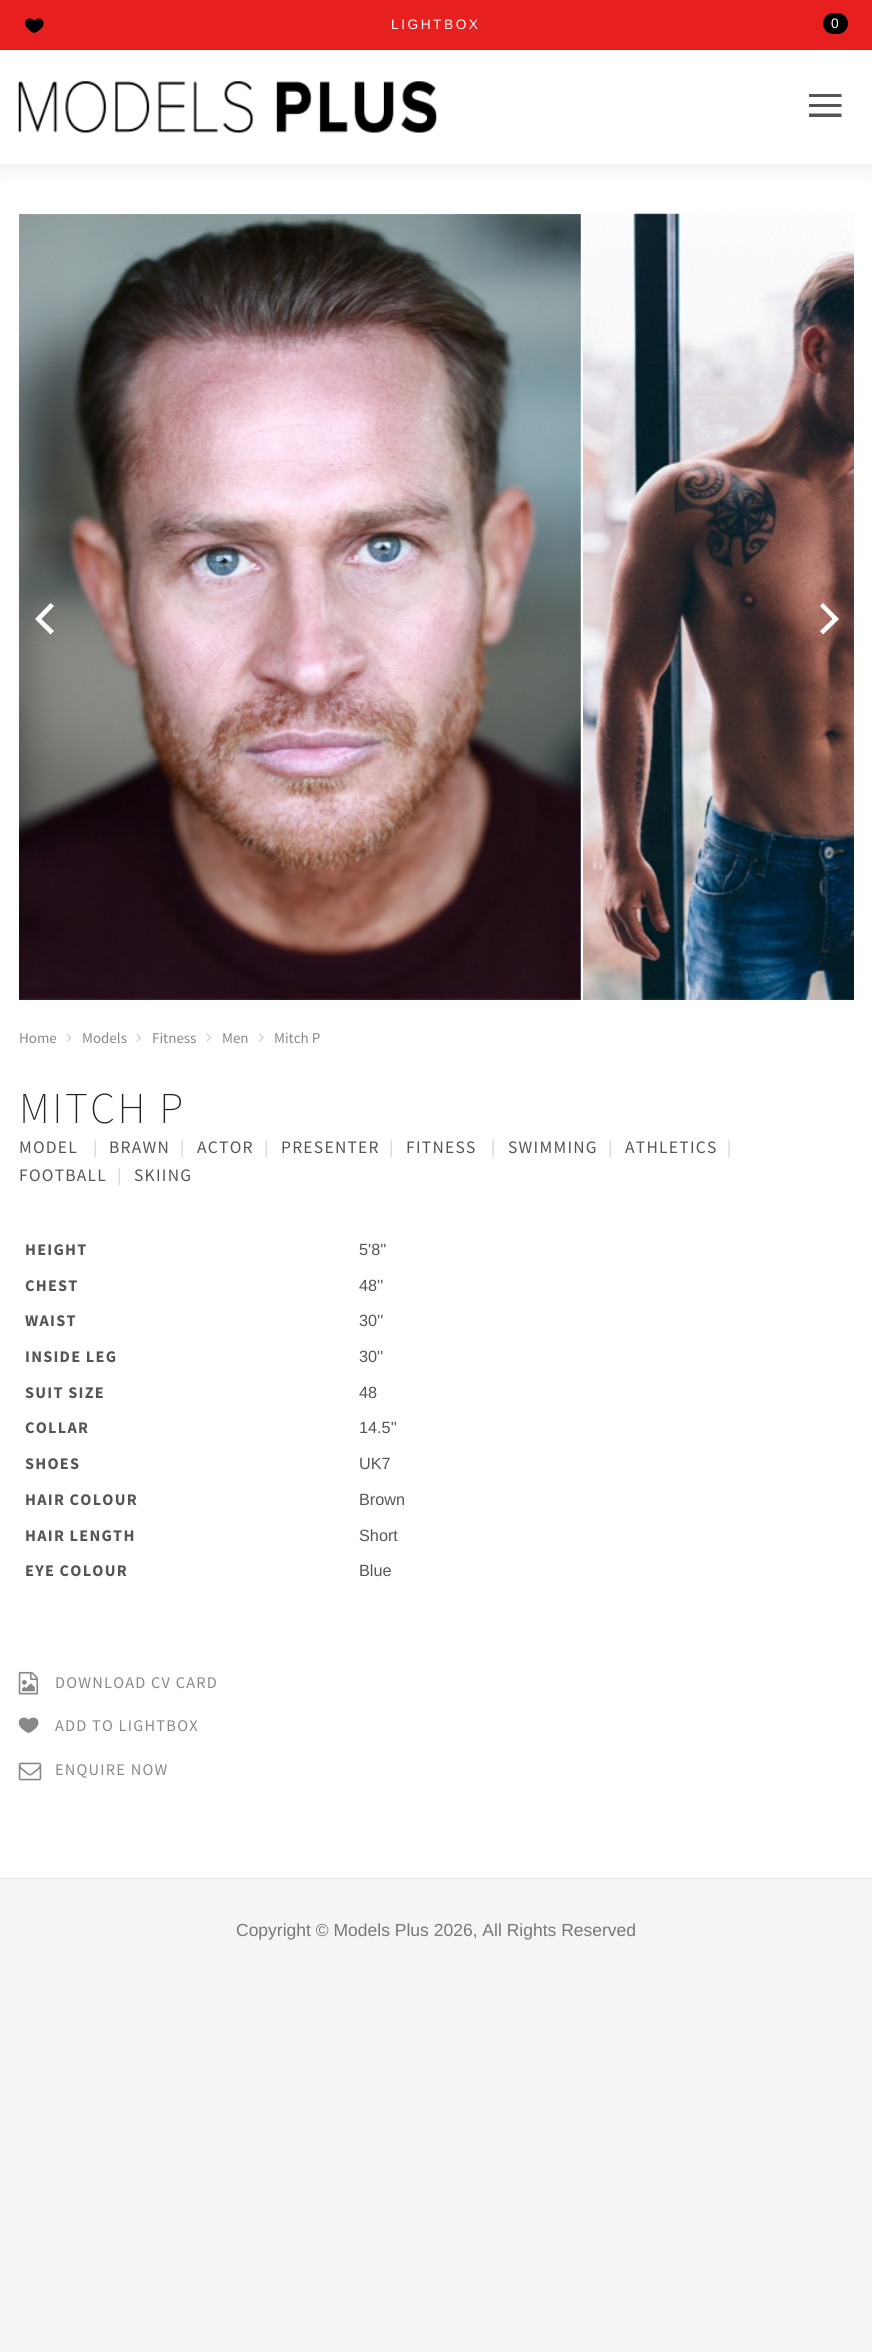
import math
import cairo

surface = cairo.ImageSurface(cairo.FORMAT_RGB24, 872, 2352)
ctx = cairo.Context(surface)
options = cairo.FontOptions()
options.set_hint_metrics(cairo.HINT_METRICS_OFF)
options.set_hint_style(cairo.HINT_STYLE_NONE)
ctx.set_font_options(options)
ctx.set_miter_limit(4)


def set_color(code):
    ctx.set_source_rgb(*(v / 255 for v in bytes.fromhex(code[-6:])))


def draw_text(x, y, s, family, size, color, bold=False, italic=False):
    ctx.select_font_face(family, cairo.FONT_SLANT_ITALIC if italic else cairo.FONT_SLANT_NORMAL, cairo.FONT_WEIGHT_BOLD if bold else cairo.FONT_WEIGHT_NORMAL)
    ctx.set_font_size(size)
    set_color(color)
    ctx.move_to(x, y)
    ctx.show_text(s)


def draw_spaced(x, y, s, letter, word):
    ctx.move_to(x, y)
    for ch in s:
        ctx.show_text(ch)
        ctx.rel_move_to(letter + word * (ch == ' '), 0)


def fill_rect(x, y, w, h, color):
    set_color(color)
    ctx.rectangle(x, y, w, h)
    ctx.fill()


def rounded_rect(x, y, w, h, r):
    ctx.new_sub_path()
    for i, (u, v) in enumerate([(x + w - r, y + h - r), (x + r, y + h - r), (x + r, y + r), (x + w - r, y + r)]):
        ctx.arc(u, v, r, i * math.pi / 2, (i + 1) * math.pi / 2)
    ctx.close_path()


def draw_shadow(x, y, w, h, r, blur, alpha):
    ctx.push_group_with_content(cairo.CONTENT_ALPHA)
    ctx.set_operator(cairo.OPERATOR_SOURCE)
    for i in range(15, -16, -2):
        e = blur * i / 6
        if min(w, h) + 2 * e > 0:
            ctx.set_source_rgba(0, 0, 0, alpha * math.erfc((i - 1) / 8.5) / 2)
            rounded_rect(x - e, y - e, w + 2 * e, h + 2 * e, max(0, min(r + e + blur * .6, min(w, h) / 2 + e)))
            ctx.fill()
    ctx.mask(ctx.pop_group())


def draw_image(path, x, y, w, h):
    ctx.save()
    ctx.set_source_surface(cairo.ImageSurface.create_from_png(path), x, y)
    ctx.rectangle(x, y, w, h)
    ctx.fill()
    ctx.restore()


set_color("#f5f5f5")
ctx.paint()
fill_rect(0, 164, 872, 1714, "#ffffff")
set_color("#000000")
draw_shadow(0, 0, 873, 164, 0, 12.5, 0.1)
fill_rect(0, 50, 872, 114, "#ffffff")
fill_rect(0, 0, 872, 50, "#e71f1f")
draw_image("assets/img1.png", 25, 18, 19, 15)
ctx.select_font_face("Liberation Sans")
ctx.set_font_size(13.75)
set_color("#ffffff")
draw_spaced(391, 29, "LIGHTBOX", 2.5, 0)
set_color("#000000")
rounded_rect(823, 13, 25, 21, 10.5)
ctx.fill()
draw_text(831, 28, "0", "Liberation Sans", 13.75, "#ffffff")
draw_image("assets/img2.png", 18, 81, 419, 52)
set_color("#555555")
ctx.new_path()
ctx.move_to(809, 107)
ctx.line_to(809, 104)
ctx.line_to(841.5, 104)
ctx.line_to(841.5, 107)
ctx.close_path()
ctx.move_to(809, 97)
ctx.line_to(809, 94)
ctx.line_to(841.5, 94)
ctx.line_to(841.5, 97)
ctx.close_path()
ctx.move_to(809, 117)
ctx.line_to(809, 113.5)
ctx.line_to(841.5, 113.5)
ctx.line_to(841.5, 117)
ctx.close_path()
ctx.fill()
draw_image("assets/img3.png", 19, 214, 562, 786)
draw_image("assets/img4.png", 583, 213, 271, 787)
set_color("#ffffff")
ctx.new_path()
ctx.move_to(54, 606)
ctx.line_to(41.5, 619)
ctx.line_to(54, 631)
ctx.line_to(50.5, 634.5)
ctx.line_to(35, 619)
ctx.line_to(50.5, 603)
ctx.close_path()
ctx.fill()
ctx.new_path()
ctx.move_to(820, 606)
ctx.line_to(823, 603)
ctx.line_to(839, 619)
ctx.line_to(823, 634.5)
ctx.line_to(820, 631)
ctx.line_to(832.5, 619)
ctx.close_path()
ctx.fill()
draw_text(19, 1043, "Home", "Source Sans Pro", 15, "#888888")
draw_image("assets/img5.png", 66, 1033, 6, 9)
draw_text(82, 1043, "Models", "Source Sans Pro", 15, "#888888")
draw_image("assets/img5.png", 136, 1033, 6, 9)
draw_text(152, 1043, "Fitness", "Source Sans Pro", 15, "#888888")
draw_image("assets/img5.png", 206, 1033, 6, 9)
draw_text(222, 1043, "Men", "Source Sans Pro", 15, "#888888")
draw_image("assets/img6.png", 259, 1033, 5, 9)
draw_text(274, 1043, "Mitch P", "Source Sans Pro", 15, "#888888")
ctx.select_font_face("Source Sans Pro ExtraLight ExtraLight")
ctx.set_font_size(44)
set_color("#222222")
draw_spaced(19, 1123, "MITCH P", 2.5, 0)
ctx.select_font_face("Source Sans Pro")
ctx.set_font_size(17.5)
set_color("#555555")
draw_spaced(19, 1153, "MODEL", 1.25, 0)
set_color("#cccccc")
draw_spaced(93, 1153, "|", 1.25, 0)
set_color("#555555")
draw_spaced(109, 1153, "BRAWN", 1.25, 0)
set_color("#cccccc")
draw_spaced(180, 1153, "|", 1.25, 0)
set_color("#555555")
draw_spaced(197, 1153, "ACTOR", 1.25, 0)
set_color("#cccccc")
draw_spaced(264, 1153, "|", 1.25, 0)
set_color("#555555")
draw_spaced(281, 1153, "PRESENTER", 1.25, 0)
set_color("#cccccc")
draw_spaced(389, 1153, "|", 1.25, 0)
set_color("#555555")
draw_spaced(406, 1153, "FITNESS", 1.25, 0)
set_color("#cccccc")
draw_spaced(491, 1153, "|", 1.25, 0)
set_color("#555555")
draw_spaced(508, 1153, "SWIMMING", 1.25, 0)
set_color("#cccccc")
draw_spaced(608, 1153, "|", 1.25, 0)
set_color("#555555")
draw_spaced(625, 1153, "ATHLETICS", 1.25, 0)
set_color("#cccccc")
draw_spaced(727, 1153, "|", 1.25, 0)
set_color("#555555")
draw_spaced(19, 1181, "FOOTBALL", 1.25, 0)
set_color("#cccccc")
draw_spaced(117, 1181, "|", 1.25, 0)
set_color("#555555")
draw_spaced(134, 1181, "SKIING", 1.25, 0)
ctx.select_font_face("Source Sans Pro", cairo.FONT_SLANT_NORMAL, cairo.FONT_WEIGHT_BOLD)
ctx.set_font_size(16.25)
draw_spaced(25, 1255, "HEIGHT", 1.25, 0)
draw_text(359, 1255, "5'8''", "Liberation Sans", 16.25, "#555555")
ctx.select_font_face("Source Sans Pro", cairo.FONT_SLANT_NORMAL, cairo.FONT_WEIGHT_BOLD)
draw_spaced(25, 1291, "CHEST", 1.25, 0)
draw_text(359, 1291, "48''", "Liberation Sans", 16.25, "#555555")
ctx.select_font_face("Source Sans Pro", cairo.FONT_SLANT_NORMAL, cairo.FONT_WEIGHT_BOLD)
draw_spaced(25, 1326, "WAIST", 1.25, 0)
draw_text(359, 1326, "30''", "Liberation Sans", 16.25, "#555555")
ctx.select_font_face("Source Sans Pro", cairo.FONT_SLANT_NORMAL, cairo.FONT_WEIGHT_BOLD)
draw_spaced(25, 1362, "INSIDE LEG", 1.25, 0)
draw_text(359, 1362, "30''", "Liberation Sans", 16.25, "#555555")
ctx.select_font_face("Source Sans Pro", cairo.FONT_SLANT_NORMAL, cairo.FONT_WEIGHT_BOLD)
draw_spaced(25, 1398, "SUIT SIZE", 1.25, 0)
draw_text(359, 1398, "48", "Liberation Sans", 16.25, "#555555")
ctx.select_font_face("Source Sans Pro", cairo.FONT_SLANT_NORMAL, cairo.FONT_WEIGHT_BOLD)
draw_spaced(25, 1433, "COLLAR", 1.25, 0)
draw_text(359, 1433, "14.5''", "Liberation Sans", 16.25, "#555555")
ctx.select_font_face("Source Sans Pro", cairo.FONT_SLANT_NORMAL, cairo.FONT_WEIGHT_BOLD)
draw_spaced(25, 1469, "SHOES", 1.25, 0)
draw_text(359, 1469, "UK7", "Liberation Sans", 16.25, "#555555")
ctx.select_font_face("Source Sans Pro", cairo.FONT_SLANT_NORMAL, cairo.FONT_WEIGHT_BOLD)
draw_spaced(25, 1505, "HAIR COLOUR", 1.25, 0)
draw_text(359, 1505, "Brown", "Liberation Sans", 16.25, "#555555")
ctx.select_font_face("Source Sans Pro", cairo.FONT_SLANT_NORMAL, cairo.FONT_WEIGHT_BOLD)
draw_spaced(25, 1541, "HAIR LENGTH", 1.25, 0)
draw_text(359, 1541, "Short", "Liberation Sans", 16.25, "#555555")
ctx.select_font_face("Source Sans Pro", cairo.FONT_SLANT_NORMAL, cairo.FONT_WEIGHT_BOLD)
draw_spaced(25, 1576, "EYE COLOUR", 1.25, 0)
draw_text(359, 1576, "Blue", "Liberation Sans", 16.25, "#555555")
draw_image("assets/img7.png", 18, 1671, 21, 24)
ctx.select_font_face("Source Sans Pro")
set_color("#888888")
draw_spaced(55, 1688, "DOWNLOAD CV CARD", 1.25, 0)
draw_image("assets/img8.png", 18, 1717, 21, 16)
draw_spaced(55, 1731, "ADD TO LIGHTBOX", 1.25, 0)
draw_image("assets/img9.png", 18, 1762, 24, 19)
draw_spaced(55, 1775, "ENQUIRE NOW", 1.25, 0)
fill_rect(0, 1878, 872, 1, "#e5e5e5")
draw_text(236, 1936, "Copyright © Models Plus 2026, All Rights Reserved", "Liberation Sans", 17.5, "#777777")
surface.write_to_png("output.png")
